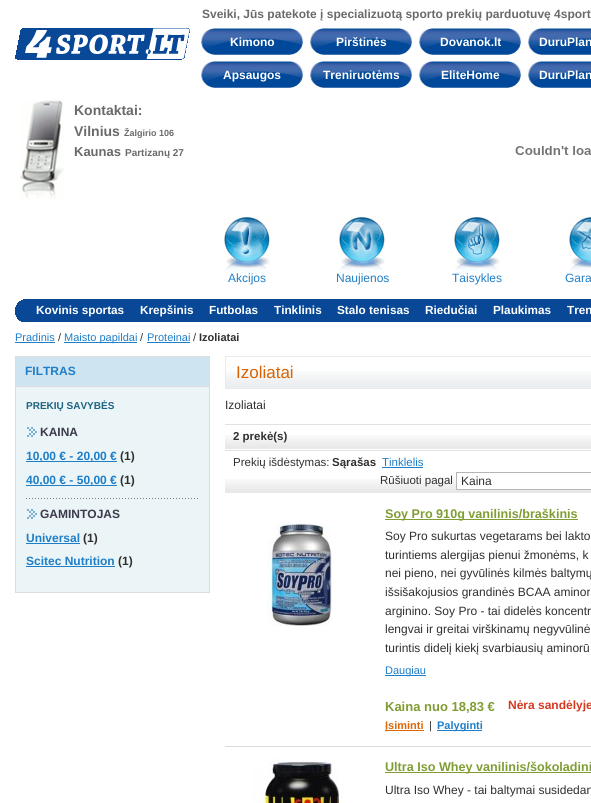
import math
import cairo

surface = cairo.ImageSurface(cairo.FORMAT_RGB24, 591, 803)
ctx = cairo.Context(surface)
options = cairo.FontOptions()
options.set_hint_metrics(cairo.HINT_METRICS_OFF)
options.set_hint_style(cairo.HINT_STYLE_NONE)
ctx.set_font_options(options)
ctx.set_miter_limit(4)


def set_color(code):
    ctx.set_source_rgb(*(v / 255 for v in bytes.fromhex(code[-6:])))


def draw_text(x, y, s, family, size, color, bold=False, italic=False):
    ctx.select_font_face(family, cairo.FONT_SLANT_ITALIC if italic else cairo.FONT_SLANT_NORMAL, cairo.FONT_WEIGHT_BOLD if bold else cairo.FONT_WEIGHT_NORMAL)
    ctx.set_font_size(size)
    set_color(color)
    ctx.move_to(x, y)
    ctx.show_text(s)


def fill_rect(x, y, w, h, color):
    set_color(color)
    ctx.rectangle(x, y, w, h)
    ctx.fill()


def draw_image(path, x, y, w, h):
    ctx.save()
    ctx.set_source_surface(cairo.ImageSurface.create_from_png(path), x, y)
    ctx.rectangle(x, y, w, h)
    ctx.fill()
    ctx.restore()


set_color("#ffffff")
ctx.paint()
draw_text(202, 18, "Sveiki, Jūs patekote į specializuotą sporto prekių parduotuvę 4sport", "Liberation Sans", 12, "#6a6a6a", bold=True)
draw_image("assets/img1.png", 15, 28, 175, 32)
draw_image("assets/img2.png", 201, 28, 103, 27)
draw_text(230, 46, "Kimono", "Liberation Sans", 12, "#ffffff", bold=True)
draw_image("assets/img2.png", 310, 28, 103, 27)
draw_text(336, 46, "Pirštinės", "Liberation Sans", 12, "#ffffff", bold=True)
draw_image("assets/img2.png", 419, 28, 103, 27)
draw_text(440, 46, "Dovanok.lt", "Liberation Sans", 12, "#ffffff", bold=True)
draw_image("assets/img3.png", 528, 28, 63, 27)
draw_text(539, 46, "DuruPlan", "Liberation Sans", 12, "#ffffff", bold=True)
draw_image("assets/img2.png", 201, 61, 103, 27)
draw_text(223, 79, "Apsaugos", "Liberation Sans", 12, "#ffffff", bold=True)
draw_image("assets/img2.png", 310, 61, 103, 27)
draw_text(323, 79, "Treniruotėms", "Liberation Sans", 12, "#ffffff", bold=True)
draw_image("assets/img2.png", 419, 61, 103, 27)
draw_text(441, 79, "EliteHome", "Liberation Sans", 12, "#ffffff", bold=True)
draw_image("assets/img3.png", 528, 61, 63, 27)
draw_text(539, 79, "DuruPlan", "Liberation Sans", 12, "#ffffff", bold=True)
draw_image("assets/img4.png", 20, 100, 44, 99)
draw_text(74, 115, "Kontaktai:", "Liberation Sans", 14, "#6a6a6a", bold=True)
draw_text(74, 136, "Vilnius", "Liberation Sans", 14, "#6a6a6a", bold=True)
draw_text(124, 136, "Žalgirio 106", "Liberation Sans", 9, "#6a6a6a", bold=True)
draw_text(74, 156, "Kaunas", "Liberation Sans", 13, "#6a6a6a", bold=True)
draw_text(125, 156, "Partizanų 27", "Liberation Sans", 10, "#6a6a6a", bold=True)
draw_image("assets/img5.png", 515, 146, 76, 9)
draw_image("assets/img6.png", 224, 217, 46, 56)
draw_text(228, 282, "Akcijos", "Liberation Sans", 12, "#1e7ec8")
draw_image("assets/img7.png", 339, 217, 46, 56)
draw_text(336, 282, "Naujienos", "Liberation Sans", 12, "#1e7ec8")
draw_image("assets/img8.png", 454, 217, 46, 56)
draw_text(452, 282, "Taisykles", "Liberation Sans", 12, "#1e7ec8")
draw_image("assets/img9.png", 569, 217, 22, 56)
draw_text(565, 282, "Gara", "Liberation Sans", 12, "#1e7ec8")
draw_image("assets/img10.png", 15, 299, 576, 23)
draw_text(36, 314, "Kovinis sportas", "Liberation Sans", 11.75, "#ffffff", bold=True)
draw_text(140, 314, "Krepšinis", "Liberation Sans", 11.75, "#ffffff", bold=True)
draw_text(209, 314, "Futbolas", "Liberation Sans", 11.75, "#ffffff", bold=True)
draw_text(274, 314, "Tinklinis", "Liberation Sans", 11.75, "#ffffff", bold=True)
draw_text(337, 314, "Stalo tenisas", "Liberation Sans", 11.75, "#ffffff", bold=True)
draw_text(425, 314, "Riedučiai", "Liberation Sans", 11.75, "#ffffff", bold=True)
draw_text(493, 314, "Plaukimas", "Liberation Sans", 11.75, "#ffffff", bold=True)
draw_text(567, 314, "Tren", "Liberation Sans", 11.75, "#ffffff", bold=True)
draw_text(15, 341, "Pradinis", "Liberation Sans", 11, "#1e7ec8")
fill_rect(15, 342, 40, 1, "#1e7ec8")
draw_text(58, 341, "/", "Liberation Sans", 11, "#2f2f2f")
fill_rect(64, 342, 73, 1, "#1e7ec8")
draw_text(64, 341, "Maisto papildai", "Liberation Sans", 11, "#1e7ec8")
draw_text(140, 341, "/", "Liberation Sans", 11, "#2f2f2f")
draw_text(147, 341, "Proteinai", "Liberation Sans", 11, "#1e7ec8")
fill_rect(147, 342, 43, 1, "#1e7ec8")
draw_text(193, 341, "/", "Liberation Sans", 11, "#2f2f2f")
draw_text(199, 341, "Izoliatai", "Liberation Sans", 11, "#2f2f2f", bold=True)
fill_rect(16, 387, 193, 205, "#ebf5f7")
ctx.rectangle(15.5, 356.5, 194, 236)
set_color("#dddddd")
ctx.set_line_width(1)
ctx.stroke()
fill_rect(16, 357, 193, 29, "#cee4f1")
fill_rect(16, 386, 193, 1, "#dddddd")
draw_text(25, 375, "FILTRAS", "Liberation Sans", 12, "#1e7ec8", bold=True)
draw_text(26, 409, "PREKIŲ SAVYBĖS", "Liberation Sans", 10, "#1d6281", bold=True)
draw_image("assets/img11.png", 27, 427, 10, 10)
draw_text(40, 436, "KAINA", "Liberation Sans", 12, "#3c3b4b", bold=True)
draw_image("assets/img12.png", 26, 498, 172, 1)
fill_rect(26, 461, 91, 1, "#1e7ec8")
draw_text(26, 460, "10,00 € - 20,00 €", "Liberation Sans", 12, "#1e7ec8", bold=True)
draw_text(120, 460, "(1)", "Liberation Sans", 12, "#2f2f2f", bold=True)
fill_rect(26, 485, 91, 1, "#1e7ec8")
draw_text(26, 484, "40,00 € - 50,00 €", "Liberation Sans", 12, "#1e7ec8", bold=True)
draw_text(120, 484, "(1)", "Liberation Sans", 12, "#2f2f2f", bold=True)
draw_image("assets/img11.png", 27, 509, 10, 10)
draw_text(40, 518, "GAMINTOJAS", "Liberation Sans", 12, "#3c3b4b", bold=True)
draw_text(26, 542, "Universal", "Liberation Sans", 12, "#1e7ec8", bold=True)
fill_rect(26, 543, 54, 1, "#1e7ec8")
draw_text(83, 542, "(1)", "Liberation Sans", 12, "#2f2f2f", bold=True)
draw_text(26, 565, "Scitec Nutrition", "Liberation Sans", 12, "#1e7ec8", bold=True)
fill_rect(26, 566, 89, 1, "#1e7ec8")
draw_text(118, 565, "(1)", "Liberation Sans", 12, "#2f2f2f", bold=True)
draw_image("assets/img13.png", 226, 371, 365, 17)
ctx.rectangle(225.5, 356.5, 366, 32)
set_color("#eaeaea")
ctx.stroke()
draw_text(236, 378, "Izoliatai", "Liberation Sans", 17, "#db6200")
draw_text(225, 409, "Izoliatai", "Liberation Sans", 12, "#2f2f2f")
draw_image("assets/img14.png", 225, 435, 366, 14)
fill_rect(225, 424, 366, 1, "#e2e2e2")
draw_text(233, 440, "2 prekė(s)", "Liberation Sans", 11.5, "#2f2f2f", bold=True)
draw_image("assets/img14.png", 225, 479, 366, 14)
fill_rect(225, 450, 366, 1, "#e2e2e2")
draw_text(233, 466, "Prekių išdėstymas:", "Liberation Sans", 11.5, "#2f2f2f")
draw_text(332, 466, "Sąrašas", "Liberation Sans", 11.5, "#2f2f2f", bold=True)
draw_text(382, 466, "Tinklelis", "Liberation Sans", 11.5, "#1e7ec8")
fill_rect(382, 467, 41, 1, "#1e7ec8")
draw_text(380, 484, "Rūšiuoti pagal", "Liberation Sans", 11.5, "#2f2f2f")
fill_rect(457, 479, 134, 10, "#ffffff")
ctx.rectangle(456.5, 472.5, 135, 17)
set_color("#b6b6b6")
ctx.stroke()
draw_text(461, 485, "Kaina", "Liberation Sans", 12, "#2f2f2f")
fill_rect(225, 746, 366, 1, "#d9ddd3")
draw_image("assets/img15.png", 267, 522, 65, 104)
fill_rect(385, 519, 193, 1, "#809d33")
draw_text(385, 518, "Soy Pro 910g vanilinis/braškinis", "Liberation Sans", 12.6, "#809d33", bold=True)
draw_text(385, 540, "Soy Pro sukurtas vegetarams bei lakto", "Liberation Sans", 12, "#2f2f2f")
draw_text(385, 559, "turintiems alergijas pienui žmonėms, k", "Liberation Sans", 12, "#2f2f2f")
draw_text(385, 577, "nei pieno, nei gyvūlinės kilmės baltymų", "Liberation Sans", 12, "#2f2f2f")
draw_text(385, 596, "išsišakojusios grandinės BCAA aminor", "Liberation Sans", 12, "#2f2f2f")
draw_text(385, 615, "arginino. Soy Pro - tai didelės koncentr", "Liberation Sans", 12, "#2f2f2f")
draw_text(385, 633, "lengvai ir greitai virškinamų negyvūlinė", "Liberation Sans", 12, "#2f2f2f")
draw_text(385, 652, "turintis didelį kiekį svarbiausių aminorū", "Liberation Sans", 12, "#2f2f2f")
fill_rect(385, 675, 41, 1, "#1e7ec8")
draw_text(385, 674, "Daugiau", "Liberation Sans", 11, "#1e7ec8")
draw_text(385, 711, "Kaina nuo 18,83 €", "Liberation Sans", 13, "#809d33", bold=True)
draw_text(508, 709, "Nėra sandėlyje", "Liberation Sans", 12, "#d83820", bold=True)
fill_rect(385, 730, 39, 1, "#dc6809")
draw_text(385, 729, "Įsiminti", "Liberation Sans", 11, "#dc6809", bold=True)
draw_text(429, 729, "|", "Liberation Sans", 11, "#2f2f2f")
fill_rect(437, 730, 45, 1, "#1e7ec8")
draw_text(437, 729, "Palyginti", "Liberation Sans", 11, "#1e7ec8", bold=True)
draw_image("assets/img16.png", 253, 759, 94, 44)
fill_rect(385, 772, 206, 1, "#809d33")
draw_text(385, 771, "Ultra Iso Whey vanilinis/šokoladini", "Liberation Sans", 12.6, "#809d33", bold=True)
draw_text(385, 794, "Ultra Iso Whey - tai baltymai susidedan", "Liberation Sans", 12, "#2f2f2f")
surface.write_to_png("output.png")
